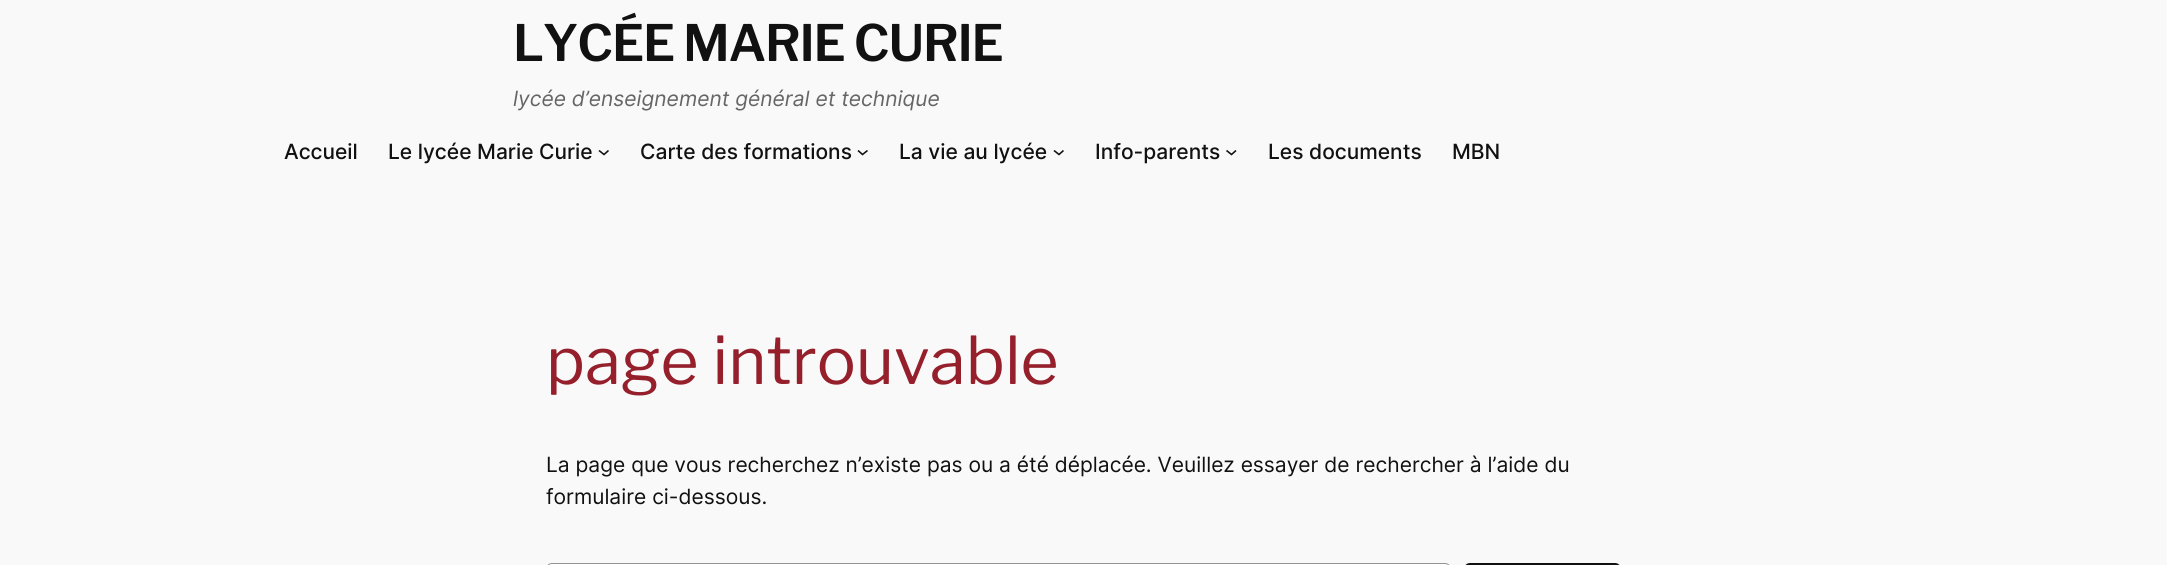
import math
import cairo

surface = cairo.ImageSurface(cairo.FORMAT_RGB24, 2167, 565)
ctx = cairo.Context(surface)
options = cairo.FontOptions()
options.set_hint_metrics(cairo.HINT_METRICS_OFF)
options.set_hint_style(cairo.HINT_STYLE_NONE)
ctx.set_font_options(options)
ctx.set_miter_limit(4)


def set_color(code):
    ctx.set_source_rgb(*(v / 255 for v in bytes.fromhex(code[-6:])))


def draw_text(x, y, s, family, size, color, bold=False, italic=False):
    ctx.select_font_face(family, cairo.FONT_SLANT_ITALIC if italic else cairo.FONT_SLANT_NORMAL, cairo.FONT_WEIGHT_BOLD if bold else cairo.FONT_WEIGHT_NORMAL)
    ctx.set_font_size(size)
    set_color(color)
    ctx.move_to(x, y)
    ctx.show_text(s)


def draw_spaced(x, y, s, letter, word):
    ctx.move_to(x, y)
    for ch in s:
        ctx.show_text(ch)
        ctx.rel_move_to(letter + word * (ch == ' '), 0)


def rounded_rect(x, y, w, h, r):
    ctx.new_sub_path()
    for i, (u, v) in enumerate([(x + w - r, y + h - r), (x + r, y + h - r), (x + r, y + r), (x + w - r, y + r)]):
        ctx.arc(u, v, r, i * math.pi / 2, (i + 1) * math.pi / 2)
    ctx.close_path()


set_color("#f9f9f9")
ctx.paint()
ctx.select_font_face("Libre Franklin SemiBold")
ctx.set_font_size(50)
set_color("#111111")
draw_spaced(513, 61, "LYCÉE MARIE CURIE", -1.25, 0)
draw_text(513, 106, "lycée d’enseignement général et technique", "Inter", 21, "#666666", italic=True)
draw_text(284, 159, "Accueil", "Inter Medium", 21, "#111111")
draw_text(388, 159, "Le lycée Marie Curie", "Inter Medium", 21, "#111111")
ctx.new_path()
ctx.move_to(599, 150.5)
ctx.line_to(604, 154.5)
ctx.line_to(608.5, 150.5)
ctx.set_line_width(1.6)
ctx.stroke()
draw_text(640, 159, "Carte des formations", "Inter Medium", 21, "#111111")
ctx.new_path()
ctx.move_to(858, 150.5)
ctx.line_to(862.5, 154.5)
ctx.line_to(867.5, 150.5)
ctx.stroke()
draw_text(899, 159, "La vie au lycée", "Inter Medium", 21, "#111111")
ctx.new_path()
ctx.move_to(1054, 150.5)
ctx.line_to(1059, 154.5)
ctx.line_to(1063.5, 150.5)
ctx.stroke()
draw_text(1095, 159, "Info-parents", "Inter Medium", 21, "#111111")
ctx.new_path()
ctx.move_to(1226.5, 150.5)
ctx.line_to(1231.5, 154.5)
ctx.line_to(1236, 150.5)
ctx.stroke()
draw_text(1268, 159, "Les documents", "Inter Medium", 21, "#111111")
draw_text(1452, 159, "MBN", "Inter Medium", 21, "#111111")
draw_text(546, 384, "page introuvable", "Libre Franklin", 65.5, "#951f2b")
draw_text(546, 472, "La page que vous recherchez n’existe pas ou a été déplacée. Veuillez essayer de rechercher à l’aide du", "Inter", 21, "#111111")
draw_text(546, 504, "formulaire ci-dessous.", "Inter", 21, "#111111")
set_color("#ffffff")
rounded_rect(546.5, 563.5, 904, 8, 5.5)
ctx.fill_preserve()
set_color("#949494")
ctx.set_line_width(1)
ctx.stroke()
set_color("#111111")
rounded_rect(1464, 563, 157, 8, 6)
ctx.fill()
surface.write_to_png("output.png")
